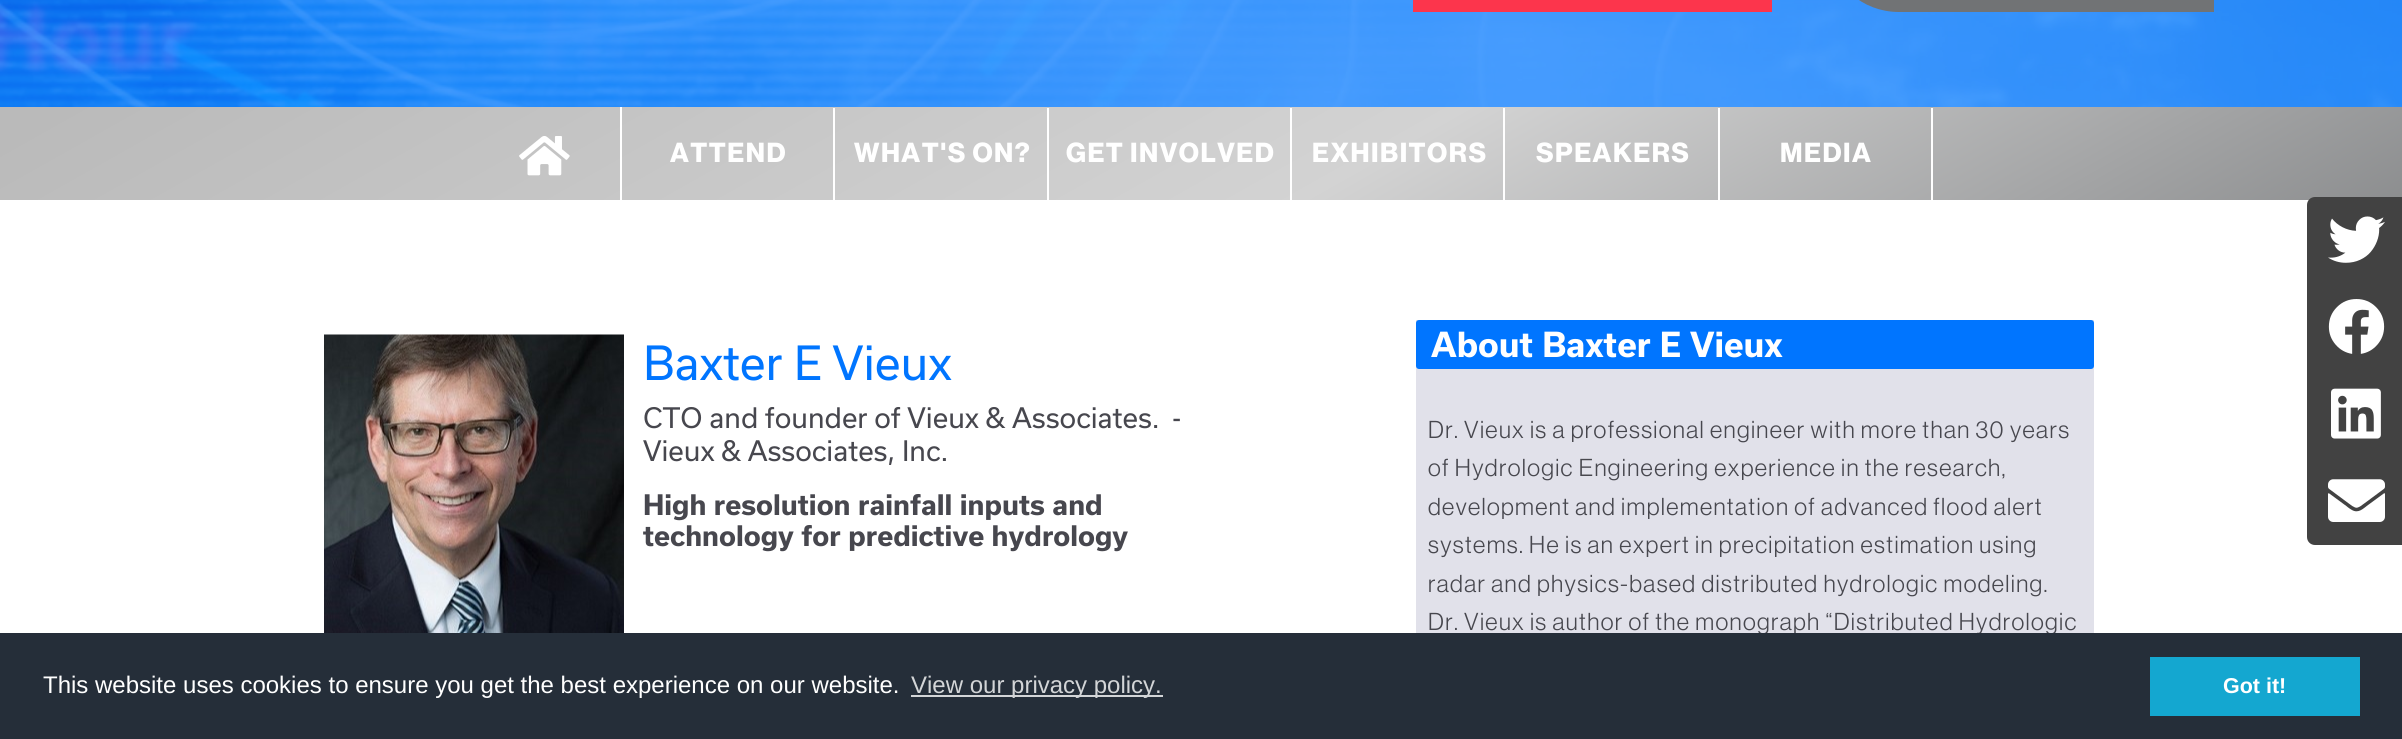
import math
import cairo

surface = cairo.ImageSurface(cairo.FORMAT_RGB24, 2402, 739)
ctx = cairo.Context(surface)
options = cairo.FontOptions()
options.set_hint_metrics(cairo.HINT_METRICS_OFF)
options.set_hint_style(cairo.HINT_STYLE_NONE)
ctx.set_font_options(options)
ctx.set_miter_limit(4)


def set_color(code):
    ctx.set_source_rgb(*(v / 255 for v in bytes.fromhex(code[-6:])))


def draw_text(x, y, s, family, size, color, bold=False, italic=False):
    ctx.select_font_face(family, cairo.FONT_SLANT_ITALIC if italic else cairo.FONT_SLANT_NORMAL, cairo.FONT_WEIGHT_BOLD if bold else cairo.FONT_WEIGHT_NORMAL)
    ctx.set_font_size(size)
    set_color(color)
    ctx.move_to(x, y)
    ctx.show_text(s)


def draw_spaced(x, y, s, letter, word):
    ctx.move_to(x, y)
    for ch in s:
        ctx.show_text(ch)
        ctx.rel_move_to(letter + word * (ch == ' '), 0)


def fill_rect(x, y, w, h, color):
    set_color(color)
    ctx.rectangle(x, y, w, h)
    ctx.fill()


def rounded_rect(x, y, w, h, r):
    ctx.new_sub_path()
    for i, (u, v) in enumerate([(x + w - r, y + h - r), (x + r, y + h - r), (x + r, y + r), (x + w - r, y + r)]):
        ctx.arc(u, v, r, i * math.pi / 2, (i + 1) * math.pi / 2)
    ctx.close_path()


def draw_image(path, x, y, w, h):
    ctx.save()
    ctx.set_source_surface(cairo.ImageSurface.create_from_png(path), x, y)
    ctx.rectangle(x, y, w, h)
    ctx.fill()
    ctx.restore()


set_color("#ffffff")
ctx.paint()
draw_image("assets/img1.png", 0, 0, 2402, 107)
ctx.set_source_rgba(0, 0.459, 1, 0.69)
ctx.rectangle(0, 0, 2402, 107)
ctx.fill()
fill_rect(1413, 0, 359, 12, "#fc354c")
set_color("#717375")
ctx.new_path()
ctx.move_to(1832, -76)
ctx.line_to(2214, -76)
ctx.line_to(2214, 12)
ctx.line_to(1899, 12)
ctx.curve_to(1862, 12, 1832, -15, 1832, -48)
ctx.close_path()
ctx.fill()
gradient = cairo.LinearGradient(-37, 159, 671, 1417)
gradient.add_color_stop_rgba(0, 0.729, 0.729, 0.729, 1)
gradient.add_color_stop_rgba(0.48, 0.827, 0.827, 0.827, 1)
gradient.add_color_stop_rgba(1, 0.443, 0.451, 0.459, 1)
ctx.set_source(gradient)
ctx.rectangle(0, 107, 2402, 93)
ctx.fill()
fill_rect(620, 107, 2, 93, "#ffffff")
draw_image("assets/img2.png", 519, 136, 51, 40)
fill_rect(833, 108, 2, 92, "#ffffff")
ctx.select_font_face("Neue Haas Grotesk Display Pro", cairo.FONT_SLANT_NORMAL, cairo.FONT_WEIGHT_BOLD)
ctx.set_font_size(27)
draw_spaced(670, 162, "ATTEND", 1.5, 0)
fill_rect(1047, 108, 2, 92, "#ffffff")
draw_spaced(854, 162, "WHAT'S ON?", 1.5, 0)
fill_rect(1290, 108, 2, 92, "#ffffff")
draw_spaced(1066, 162, "GET INVOLVED", 1.5, 0)
fill_rect(1503, 108, 2, 92, "#ffffff")
draw_spaced(1312, 162, "EXHIBITORS", 1.5, 0)
fill_rect(1718, 108, 2, 92, "#ffffff")
draw_spaced(1536, 162, "SPEAKERS", 1.5, 0)
fill_rect(1931, 108, 2, 92, "#ffffff")
draw_spaced(1780, 162, "MEDIA", 1.5, 0)
draw_image("assets/img3.png", 324, 334, 300, 299)
draw_text(643, 380, "Baxter E Vieux", "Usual", 45, "#0075ff")
draw_text(643, 428, "CTO and founder of Vieux & Associates.", "Usual", 27, "#47474e")
draw_text(1172, 428, "-", "Usual", 27, "#47474e")
draw_text(643, 461, "Vieux & Associates, Inc.", "Usual", 27, "#47474e")
draw_text(643, 515, "High resolution rainfall inputs and", "Usual", 27, "#47474e", bold=True)
draw_text(643, 546, "technology for predictive hydrology", "Usual", 27, "#47474e", bold=True)
fill_rect(1416, 320, 678, 313, "#e1e1ea")
set_color("#0075ff")
rounded_rect(1416, 320, 678, 49, 3)
ctx.fill()
draw_text(1431, 357, "About Baxter E Vieux", "Usual", 33, "#ffffff", bold=True)
ctx.select_font_face("Neue Haas Grotesk Display Pro")
ctx.set_font_size(24)
set_color("#47474e")
draw_spaced(1428, 438, "Dr. Vieux is a professional engineer with more than 30 years", 1.35, 0)
draw_spaced(1428, 476, "of Hydrologic Engineering experience in the research,", 1.35, 0)
draw_spaced(1428, 515, "development and implementation of advanced flood alert", 1.35, 0)
draw_spaced(1428, 553, "systems. He is an expert in precipitation estimation using", 1.35, 0)
draw_spaced(1428, 592, "radar and physics-based distributed hydrologic modeling.", 1.35, 0)
draw_spaced(1428, 630, "Dr. Vieux is author of the monograph “Distributed Hydrologic", 1.35, 0)
set_color("#424242")
ctx.new_path()
ctx.move_to(2315, 197)
ctx.line_to(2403, 197)
ctx.line_to(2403, 545)
ctx.line_to(2315, 545)
ctx.curve_to(2310.5, 545, 2307, 541.5, 2307, 537)
ctx.line_to(2307, 205)
ctx.curve_to(2307, 200.5, 2310.5, 197, 2315, 197)
ctx.close_path()
ctx.fill()
draw_image("assets/img4.png", 2328, 216, 57, 47)
draw_image("assets/img5.png", 2328, 299, 57, 55)
draw_image("assets/img6.png", 2331, 388, 50, 51)
draw_image("assets/img7.png", 2328, 479, 57, 43)
fill_rect(0, 633, 2402, 106, "#252e39")
draw_text(43, 693, "This website uses cookies to ensure you get the best experience on our website.", "Liberation Sans", 24, "#ffffff")
fill_rect(911, 695, 252, 2, "#d3d5d7")
draw_text(911, 693, "View our privacy policy.", "Liberation Sans", 24, "#d3d5d7")
fill_rect(2150, 657, 210, 59, "#14a7d0")
draw_text(2223, 693, "Got it!", "Liberation Sans", 21.5, "#ffffff", bold=True)
surface.write_to_png("output.png")
